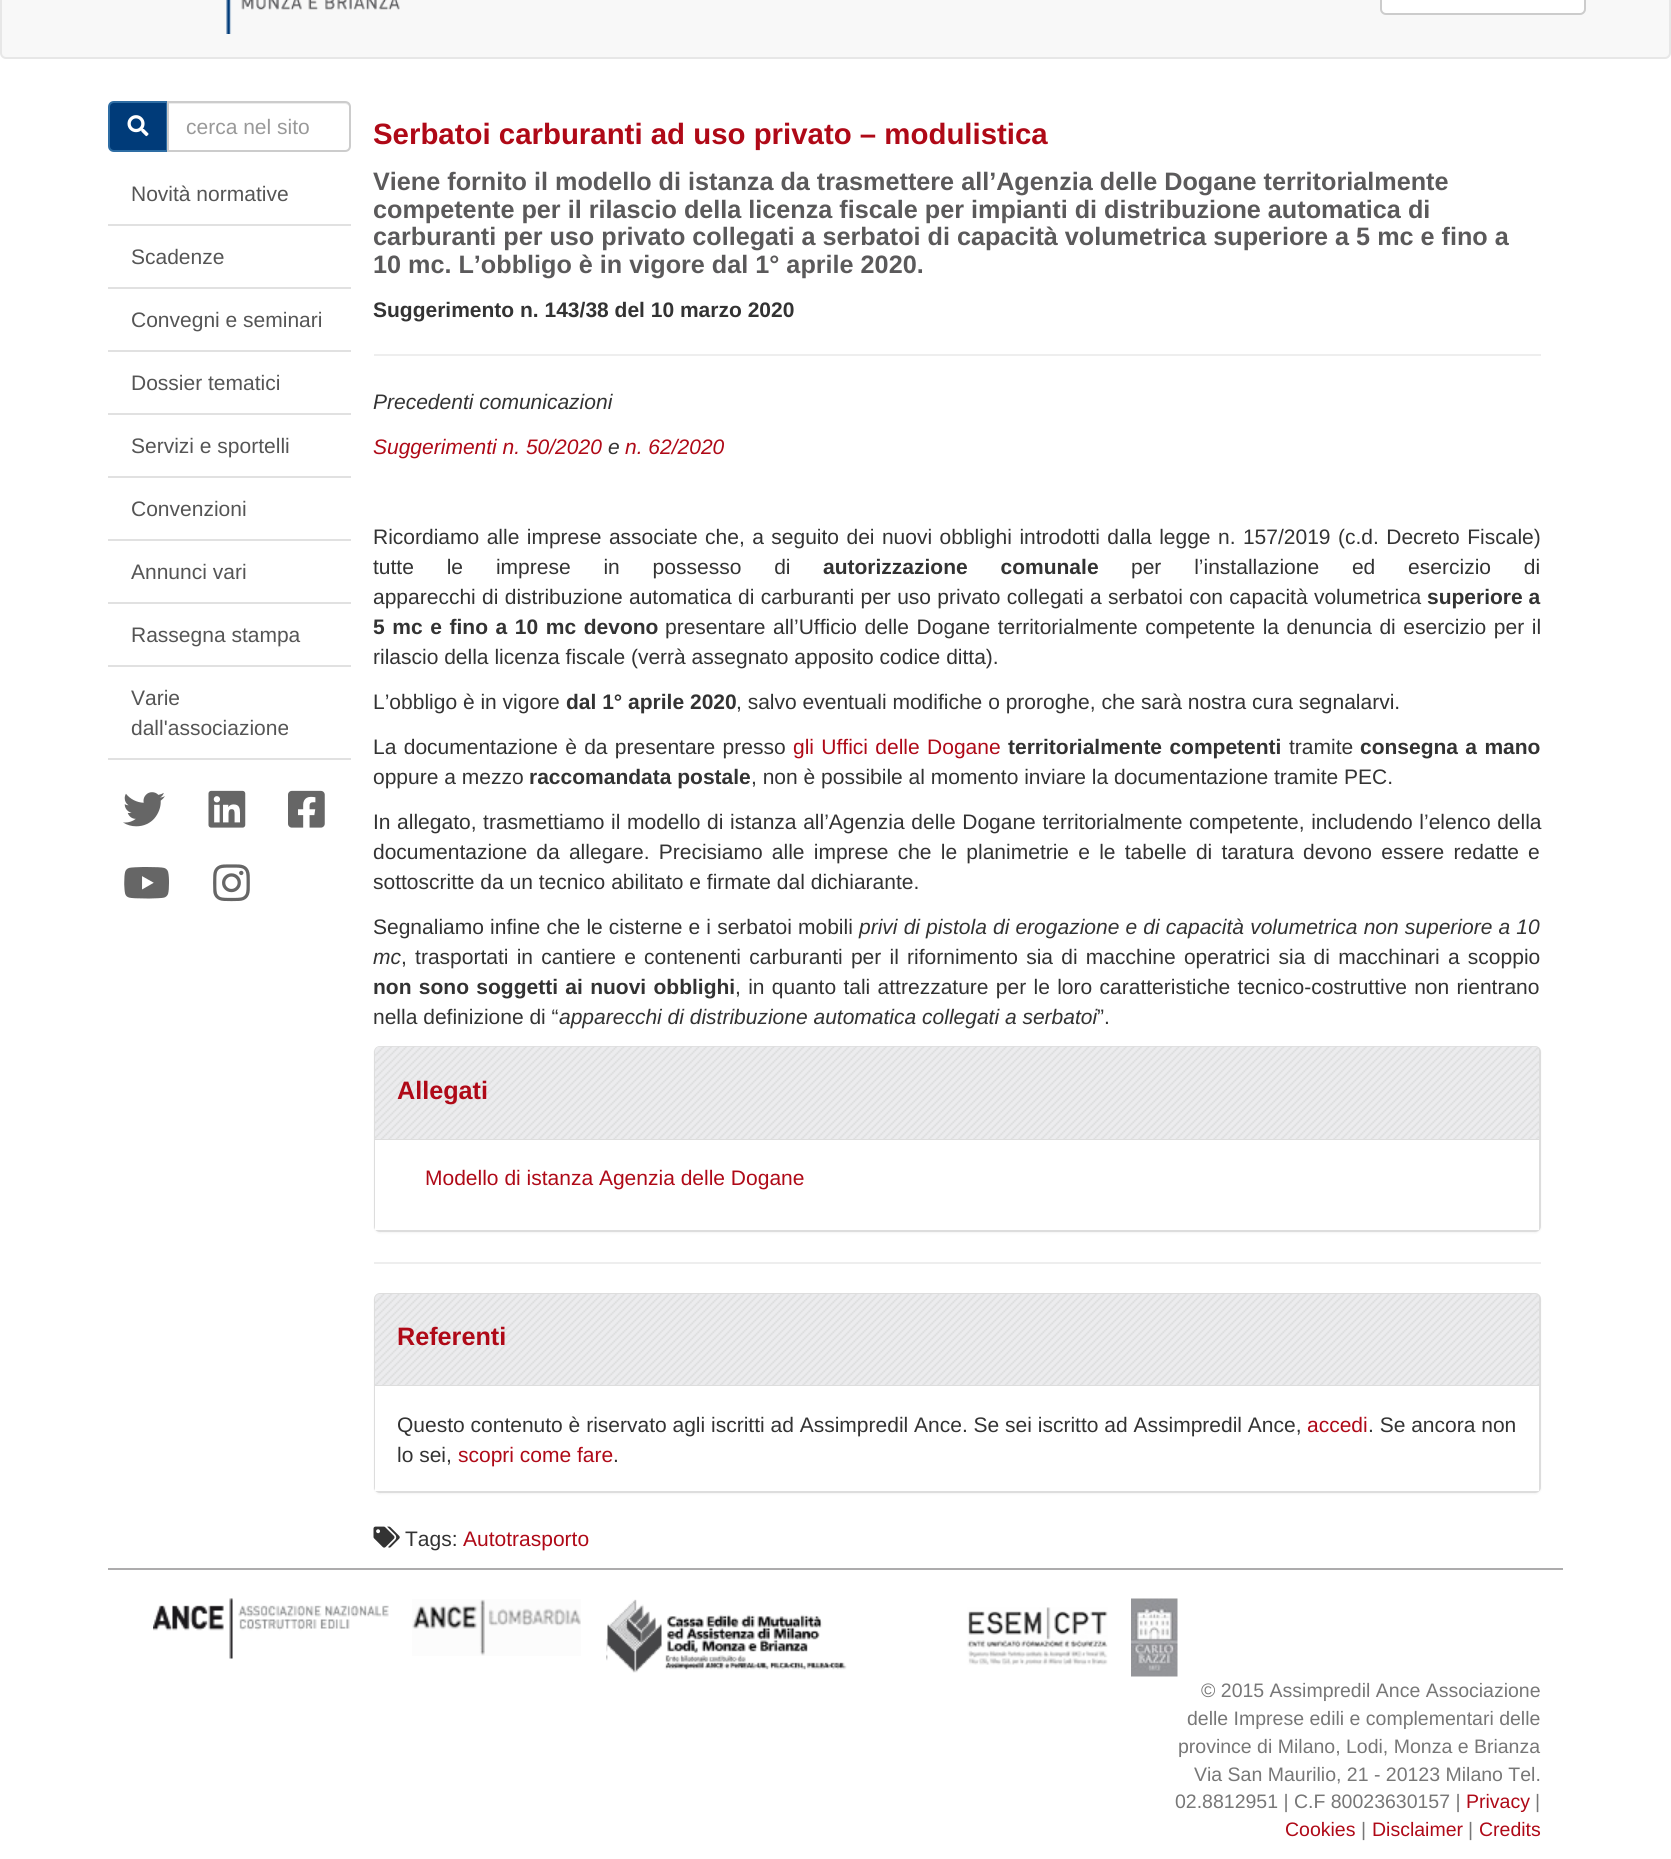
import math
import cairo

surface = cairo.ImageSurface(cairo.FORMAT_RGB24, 1671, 1859)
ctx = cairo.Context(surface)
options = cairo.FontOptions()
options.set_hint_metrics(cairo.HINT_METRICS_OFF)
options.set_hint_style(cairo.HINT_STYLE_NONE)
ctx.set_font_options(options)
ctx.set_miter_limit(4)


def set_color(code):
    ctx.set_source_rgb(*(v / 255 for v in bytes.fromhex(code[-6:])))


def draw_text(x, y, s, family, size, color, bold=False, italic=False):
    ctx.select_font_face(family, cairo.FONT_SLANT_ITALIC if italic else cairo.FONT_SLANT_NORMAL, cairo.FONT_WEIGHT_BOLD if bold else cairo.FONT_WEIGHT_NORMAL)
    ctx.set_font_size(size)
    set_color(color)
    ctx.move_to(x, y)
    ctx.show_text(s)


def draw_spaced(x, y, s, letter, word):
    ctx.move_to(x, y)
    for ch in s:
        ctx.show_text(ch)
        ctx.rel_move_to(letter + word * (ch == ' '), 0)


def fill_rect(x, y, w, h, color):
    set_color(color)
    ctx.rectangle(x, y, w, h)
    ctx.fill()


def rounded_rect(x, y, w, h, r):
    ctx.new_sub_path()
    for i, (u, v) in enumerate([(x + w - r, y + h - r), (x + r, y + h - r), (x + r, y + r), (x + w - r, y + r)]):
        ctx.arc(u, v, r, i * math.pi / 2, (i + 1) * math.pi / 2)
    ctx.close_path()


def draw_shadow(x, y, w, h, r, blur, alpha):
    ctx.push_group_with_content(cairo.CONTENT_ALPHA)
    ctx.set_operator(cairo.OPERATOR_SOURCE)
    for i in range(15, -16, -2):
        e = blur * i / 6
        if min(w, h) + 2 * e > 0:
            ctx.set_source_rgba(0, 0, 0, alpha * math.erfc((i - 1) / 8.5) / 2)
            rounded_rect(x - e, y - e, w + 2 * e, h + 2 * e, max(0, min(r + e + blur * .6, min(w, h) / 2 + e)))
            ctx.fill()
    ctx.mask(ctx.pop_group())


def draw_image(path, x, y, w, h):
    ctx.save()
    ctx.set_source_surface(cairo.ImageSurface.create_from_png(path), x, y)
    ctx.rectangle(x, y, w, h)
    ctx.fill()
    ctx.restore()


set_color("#ffffff")
ctx.paint()
set_color("#f8f8f8")
rounded_rect(1, -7, 1669, 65, 5)
ctx.fill_preserve()
set_color("#e7e7e7")
ctx.stroke()
draw_image("assets/img1.png", 226, 0, 174, 34)
set_color("#ffffff")
rounded_rect(1381, -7, 204, 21, 5)
ctx.fill_preserve()
set_color("#cccccc")
ctx.stroke()
set_color("#003b79")
ctx.new_path()
ctx.move_to(114, 102)
ctx.line_to(167, 102)
ctx.line_to(167, 151)
ctx.line_to(114, 151)
ctx.curve_to(111, 151, 109, 149, 109, 146)
ctx.line_to(109, 107)
ctx.curve_to(109, 104, 111, 102, 114, 102)
ctx.close_path()
ctx.fill_preserve()
set_color("#2e6da4")
ctx.stroke()
draw_image("assets/img2.png", 127, 115, 22, 22)
set_color("#ffffff")
ctx.new_path()
ctx.move_to(167, 101)
ctx.line_to(345, 101)
ctx.curve_to(348.5, 101, 351, 103.5, 351, 107)
ctx.line_to(351, 146)
ctx.curve_to(351, 149.5, 348.5, 152, 345, 152)
ctx.line_to(167, 152)
ctx.close_path()
ctx.fill()
set_color("#ececec")
ctx.new_path()
ctx.move_to(168, 104)
ctx.line_to(345, 104)
ctx.curve_to(347, 104, 350, 106, 350, 108)
ctx.line_to(350, 107)
ctx.curve_to(350, 104, 348, 102, 345, 102)
ctx.line_to(168, 102)
ctx.close_path()
ctx.fill()
ctx.new_path()
ctx.move_to(168, 102)
ctx.line_to(345, 102)
ctx.curve_to(348, 102, 350, 104, 350, 107)
ctx.line_to(350, 146)
ctx.curve_to(350, 149, 348, 151, 345, 151)
ctx.line_to(168, 151)
ctx.close_path()
set_color("#cccccc")
ctx.stroke()
draw_text(186, 134, "cerca nel sito", "Liberation Sans", 21, "#999999")
fill_rect(108, 224, 243, 2, "#e1e1e1")
draw_text(131, 201, "Novità normative", "Liberation Sans", 21, "#555555")
fill_rect(108, 287, 243, 2, "#e1e1e1")
draw_text(131, 264, "Scadenze", "Liberation Sans", 21, "#555555")
fill_rect(108, 350, 243, 2, "#e1e1e1")
draw_text(131, 327, "Convegni e seminari", "Liberation Sans", 21, "#555555")
fill_rect(108, 413, 243, 2, "#e1e1e1")
draw_text(131, 390, "Dossier tematici", "Liberation Sans", 21, "#555555")
fill_rect(108, 476, 243, 2, "#e1e1e1")
draw_text(131, 453, "Servizi e sportelli", "Liberation Sans", 21, "#555555")
fill_rect(108, 539, 243, 2, "#e1e1e1")
draw_text(131, 516, "Convenzioni", "Liberation Sans", 21, "#555555")
fill_rect(108, 602, 243, 2, "#e1e1e1")
draw_text(131, 579, "Annunci vari", "Liberation Sans", 21, "#555555")
fill_rect(108, 665, 243, 2, "#e1e1e1")
draw_text(131, 642, "Rassegna stampa", "Liberation Sans", 21, "#555555")
fill_rect(108, 758, 243, 2, "#e1e1e1")
draw_text(131, 705, "Varie", "Liberation Sans", 21, "#555555")
draw_text(131, 735, "dall'associazione", "Liberation Sans", 21, "#555555")
draw_image("assets/img3.png", 123, 792, 42, 35)
draw_image("assets/img4.png", 208, 790, 38, 38)
draw_image("assets/img5.png", 288, 790, 37, 38)
draw_image("assets/img6.png", 124, 867, 45, 32)
draw_image("assets/img7.png", 213, 864, 37, 38)
draw_text(373, 144, "Serbatoi carburanti ad uso privato – modulistica", "Liberation Sans", 29.4, "#af0917", bold=True)
draw_text(373, 190, "Viene fornito il modello di istanza da trasmettere all’Agenzia delle Dogane territorialmente", "Liberation Sans", 25.2, "#5b5a5b", bold=True)
draw_text(373, 218, "competente per il rilascio della licenza fiscale per impianti di distribuzione automatica di", "Liberation Sans", 25.2, "#5b5a5b", bold=True)
draw_text(373, 245, "carburanti per uso privato collegati a serbatoi di capacità volumetrica superiore a 5 mc e fino a", "Liberation Sans", 25.2, "#5b5a5b", bold=True)
draw_text(373, 273, "10 mc. L’obbligo è in vigore dal 1° aprile 2020.", "Liberation Sans", 25.2, "#5b5a5b", bold=True)
draw_text(373, 317, "Suggerimento n. 143/38 del 10 marzo 2020", "Liberation Sans", 21, "#333333", bold=True)
fill_rect(374, 354, 1167, 2, "#eeeeee")
draw_text(373, 409, "Precedenti comunicazioni", "Liberation Sans", 21, "#333333", italic=True)
draw_text(373, 454, "Suggerimenti n. 50/2020", "Liberation Sans", 21, "#af0917", italic=True)
draw_text(608, 454, "e", "Liberation Sans", 21, "#333333", italic=True)
draw_text(625, 454, "n. 62/2020", "Liberation Sans", 21, "#af0917", italic=True)
ctx.select_font_face("Liberation Sans")
set_color("#333333")
draw_spaced(373, 544, "Ricordiamo alle imprese associate che, a seguito dei nuovi obblighi introdotti dalla legge n. 157/2019 (c.d. Decreto Fiscale)", 0, 1.6)
draw_spaced(373, 574, "tutte le imprese in possesso di", 0, 27)
ctx.select_font_face("Liberation Sans", cairo.FONT_SLANT_NORMAL, cairo.FONT_WEIGHT_BOLD)
draw_spaced(823, 574, "autorizzazione comunale", 0, 27)
ctx.select_font_face("Liberation Sans")
draw_spaced(1131, 574, "per l’installazione ed esercizio di", 0, 27)
draw_spaced(373, 604, "apparecchi di distribuzione automatica di carburanti per uso privato collegati a serbatoi con capacità volumetrica", 0, 0.5)
draw_text(1427, 604, "superiore a", "Liberation Sans", 21, "#333333", bold=True)
draw_spaced(373, 634, "5 mc e fino a 10 mc devono", 0, 1.75)
ctx.select_font_face("Liberation Sans")
draw_spaced(665, 634, "presentare all’Ufficio delle Dogane territorialmente competente la denuncia di esercizio per il", 0, 1.75)
draw_text(373, 664, "rilascio della licenza fiscale (verrà assegnato apposito codice ditta).", "Liberation Sans", 21, "#333333")
draw_text(373, 709, "L’obbligo è in vigore", "Liberation Sans", 21, "#333333")
draw_text(566, 709, "dal 1° aprile 2020", "Liberation Sans", 21, "#333333", bold=True)
draw_text(736, 709, ", salvo eventuali modifiche o proroghe, che sarà nostra cura segnalarvi.", "Liberation Sans", 21, "#333333")
draw_spaced(373, 754, "La documentazione è da presentare presso", 0, 1.5)
set_color("#af0917")
draw_spaced(793, 754, "gli Uffici delle Dogane", 0, 1.5)
ctx.select_font_face("Liberation Sans", cairo.FONT_SLANT_NORMAL, cairo.FONT_WEIGHT_BOLD)
set_color("#333333")
draw_spaced(1008, 754, "territorialmente competenti", 0, 1.5)
draw_text(1289, 754, "tramite", "Liberation Sans", 21, "#333333")
ctx.select_font_face("Liberation Sans", cairo.FONT_SLANT_NORMAL, cairo.FONT_WEIGHT_BOLD)
draw_spaced(1360, 754, "consegna a mano", 0, 1.5)
draw_text(373, 784, "oppure a mezzo", "Liberation Sans", 21, "#333333")
draw_text(529, 784, "raccomandata postale", "Liberation Sans", 21, "#333333", bold=True)
draw_text(751, 784, ", non è possibile al momento inviare la documentazione tramite PEC.", "Liberation Sans", 21, "#333333")
draw_spaced(373, 829, "In allegato, trasmettiamo il modello di istanza all’Agenzia delle Dogane territorialmente competente, includendo l’elenco della", 0, 0.75)
draw_spaced(373, 859, "documentazione da allegare. Precisiamo alle imprese che le planimetrie e le tabelle di taratura devono essere redatte e", 0, 3.4)
draw_text(373, 889, "sottoscritte da un tecnico abilitato e firmate dal dichiarante.", "Liberation Sans", 21, "#333333")
draw_spaced(373, 934, "Segnaliamo infine che le cisterne e i serbatoi mobili", 0, 0.3)
ctx.select_font_face("Liberation Sans", cairo.FONT_SLANT_ITALIC)
draw_spaced(859, 934, "privi di pistola di erogazione e di capacità volumetrica non superiore a 10", 0, 0.3)
draw_text(373, 964, "mc", "Liberation Sans", 21, "#333333", italic=True)
ctx.select_font_face("Liberation Sans")
draw_spaced(401, 964, ", trasportati in cantiere e contenenti carburanti per il rifornimento sia di macchine operatrici sia di macchinari a scoppio", 0, 2.4)
ctx.select_font_face("Liberation Sans", cairo.FONT_SLANT_NORMAL, cairo.FONT_WEIGHT_BOLD)
draw_spaced(373, 994, "non sono soggetti ai nuovi obblighi", 0, 1.5)
ctx.select_font_face("Liberation Sans")
draw_spaced(735, 994, ", in quanto tali attrezzature per le loro caratteristiche tecnico-costruttive non rientrano", 0, 1.5)
draw_text(373, 1024, "nella definizione di “", "Liberation Sans", 21, "#333333")
draw_text(559, 1024, "apparecchi di distribuzione automatica collegati a serbatoi", "Liberation Sans", 21, "#333333", italic=True)
draw_text(1097, 1024, "”.", "Liberation Sans", 21, "#333333")
set_color("#000000")
draw_shadow(374, 1047, 1167, 186, 6, 1, 0.05)
rounded_rect(375, 1047, 1165, 184, 5)
set_color("#dddddd")
ctx.stroke()
draw_image("assets/img8.png", 375, 1046, 1164, 93)
fill_rect(375, 1139, 1164, 1, "#dddddd")
draw_text(397, 1099, "Allegati", "Liberation Sans", 25.2, "#af0917", bold=True)
fill_rect(375, 1140, 1164, 90, "#ffffff")
draw_text(425, 1185, "Modello di istanza Agenzia delle Dogane", "Liberation Sans", 21, "#af0917")
fill_rect(374, 1262, 1167, 2, "#eeeeee")
set_color("#000000")
draw_shadow(374, 1295, 1167, 199, 6, 1, 0.05)
rounded_rect(375, 1294, 1165, 198, 5)
set_color("#dddddd")
ctx.stroke()
draw_image("assets/img9.png", 375, 1294, 1164, 91)
fill_rect(375, 1385, 1164, 1, "#dddddd")
draw_text(397, 1345, "Referenti", "Liberation Sans", 25.2, "#af0917", bold=True)
fill_rect(375, 1386, 1164, 105, "#ffffff")
draw_text(397, 1432, "Questo contenuto è riservato agli iscritti ad Assimpredil Ance. Se sei iscritto ad Assimpredil Ance,", "Liberation Sans", 21, "#333333")
draw_text(1307, 1432, "accedi", "Liberation Sans", 21, "#af0917")
draw_text(1368, 1432, ". Se ancora non", "Liberation Sans", 21, "#333333")
draw_text(397, 1462, "lo sei,", "Liberation Sans", 21, "#333333")
draw_text(458, 1462, "scopri come fare", "Liberation Sans", 21, "#af0917")
draw_text(613, 1462, ".", "Liberation Sans", 21, "#333333")
draw_image("assets/img10.png", 373, 1526, 27, 22)
draw_text(405, 1546, "Tags:", "Liberation Sans", 21, "#333333")
draw_text(463, 1546, "Autotrasporto", "Liberation Sans", 21, "#af0917")
fill_rect(108, 1568, 1455, 2, "#adacad")
draw_image("assets/img11.png", 153, 1598, 236, 61)
draw_image("assets/img12.png", 412, 1599, 169, 57)
draw_image("assets/img13.png", 606, 1599, 241, 74)
draw_image("assets/img14.png", 967, 1607, 141, 58)
draw_image("assets/img15.png", 1131, 1598, 47, 79)
draw_text(1201, 1697, "© 2015 Assimpredil Ance Associazione", "Liberation Sans", 19.5, "#777777")
draw_text(1187, 1725, "delle Imprese edili e complementari delle", "Liberation Sans", 19.5, "#777777")
draw_text(1178, 1753, "province di Milano, Lodi, Monza e Brianza", "Liberation Sans", 19.5, "#777777")
draw_text(1194, 1781, "Via San Maurilio, 21 - 20123 Milano Tel.", "Liberation Sans", 19.5, "#777777")
draw_text(1175, 1808, "02.8812951 | C.F 80023630157 |", "Liberation Sans", 19.5, "#777777")
draw_text(1466, 1808, "Privacy", "Liberation Sans", 19.5, "#af0917")
draw_text(1535, 1808, "|", "Liberation Sans", 19.5, "#777777")
draw_text(1285, 1836, "Cookies", "Liberation Sans", 19.5, "#af0917")
draw_text(1361, 1836, "|", "Liberation Sans", 19.5, "#777777")
draw_text(1372, 1836, "Disclaimer", "Liberation Sans", 19.5, "#af0917")
draw_text(1468, 1836, "|", "Liberation Sans", 19.5, "#777777")
draw_text(1479, 1836, "Credits", "Liberation Sans", 19.5, "#af0917")
surface.write_to_png("output.png")
